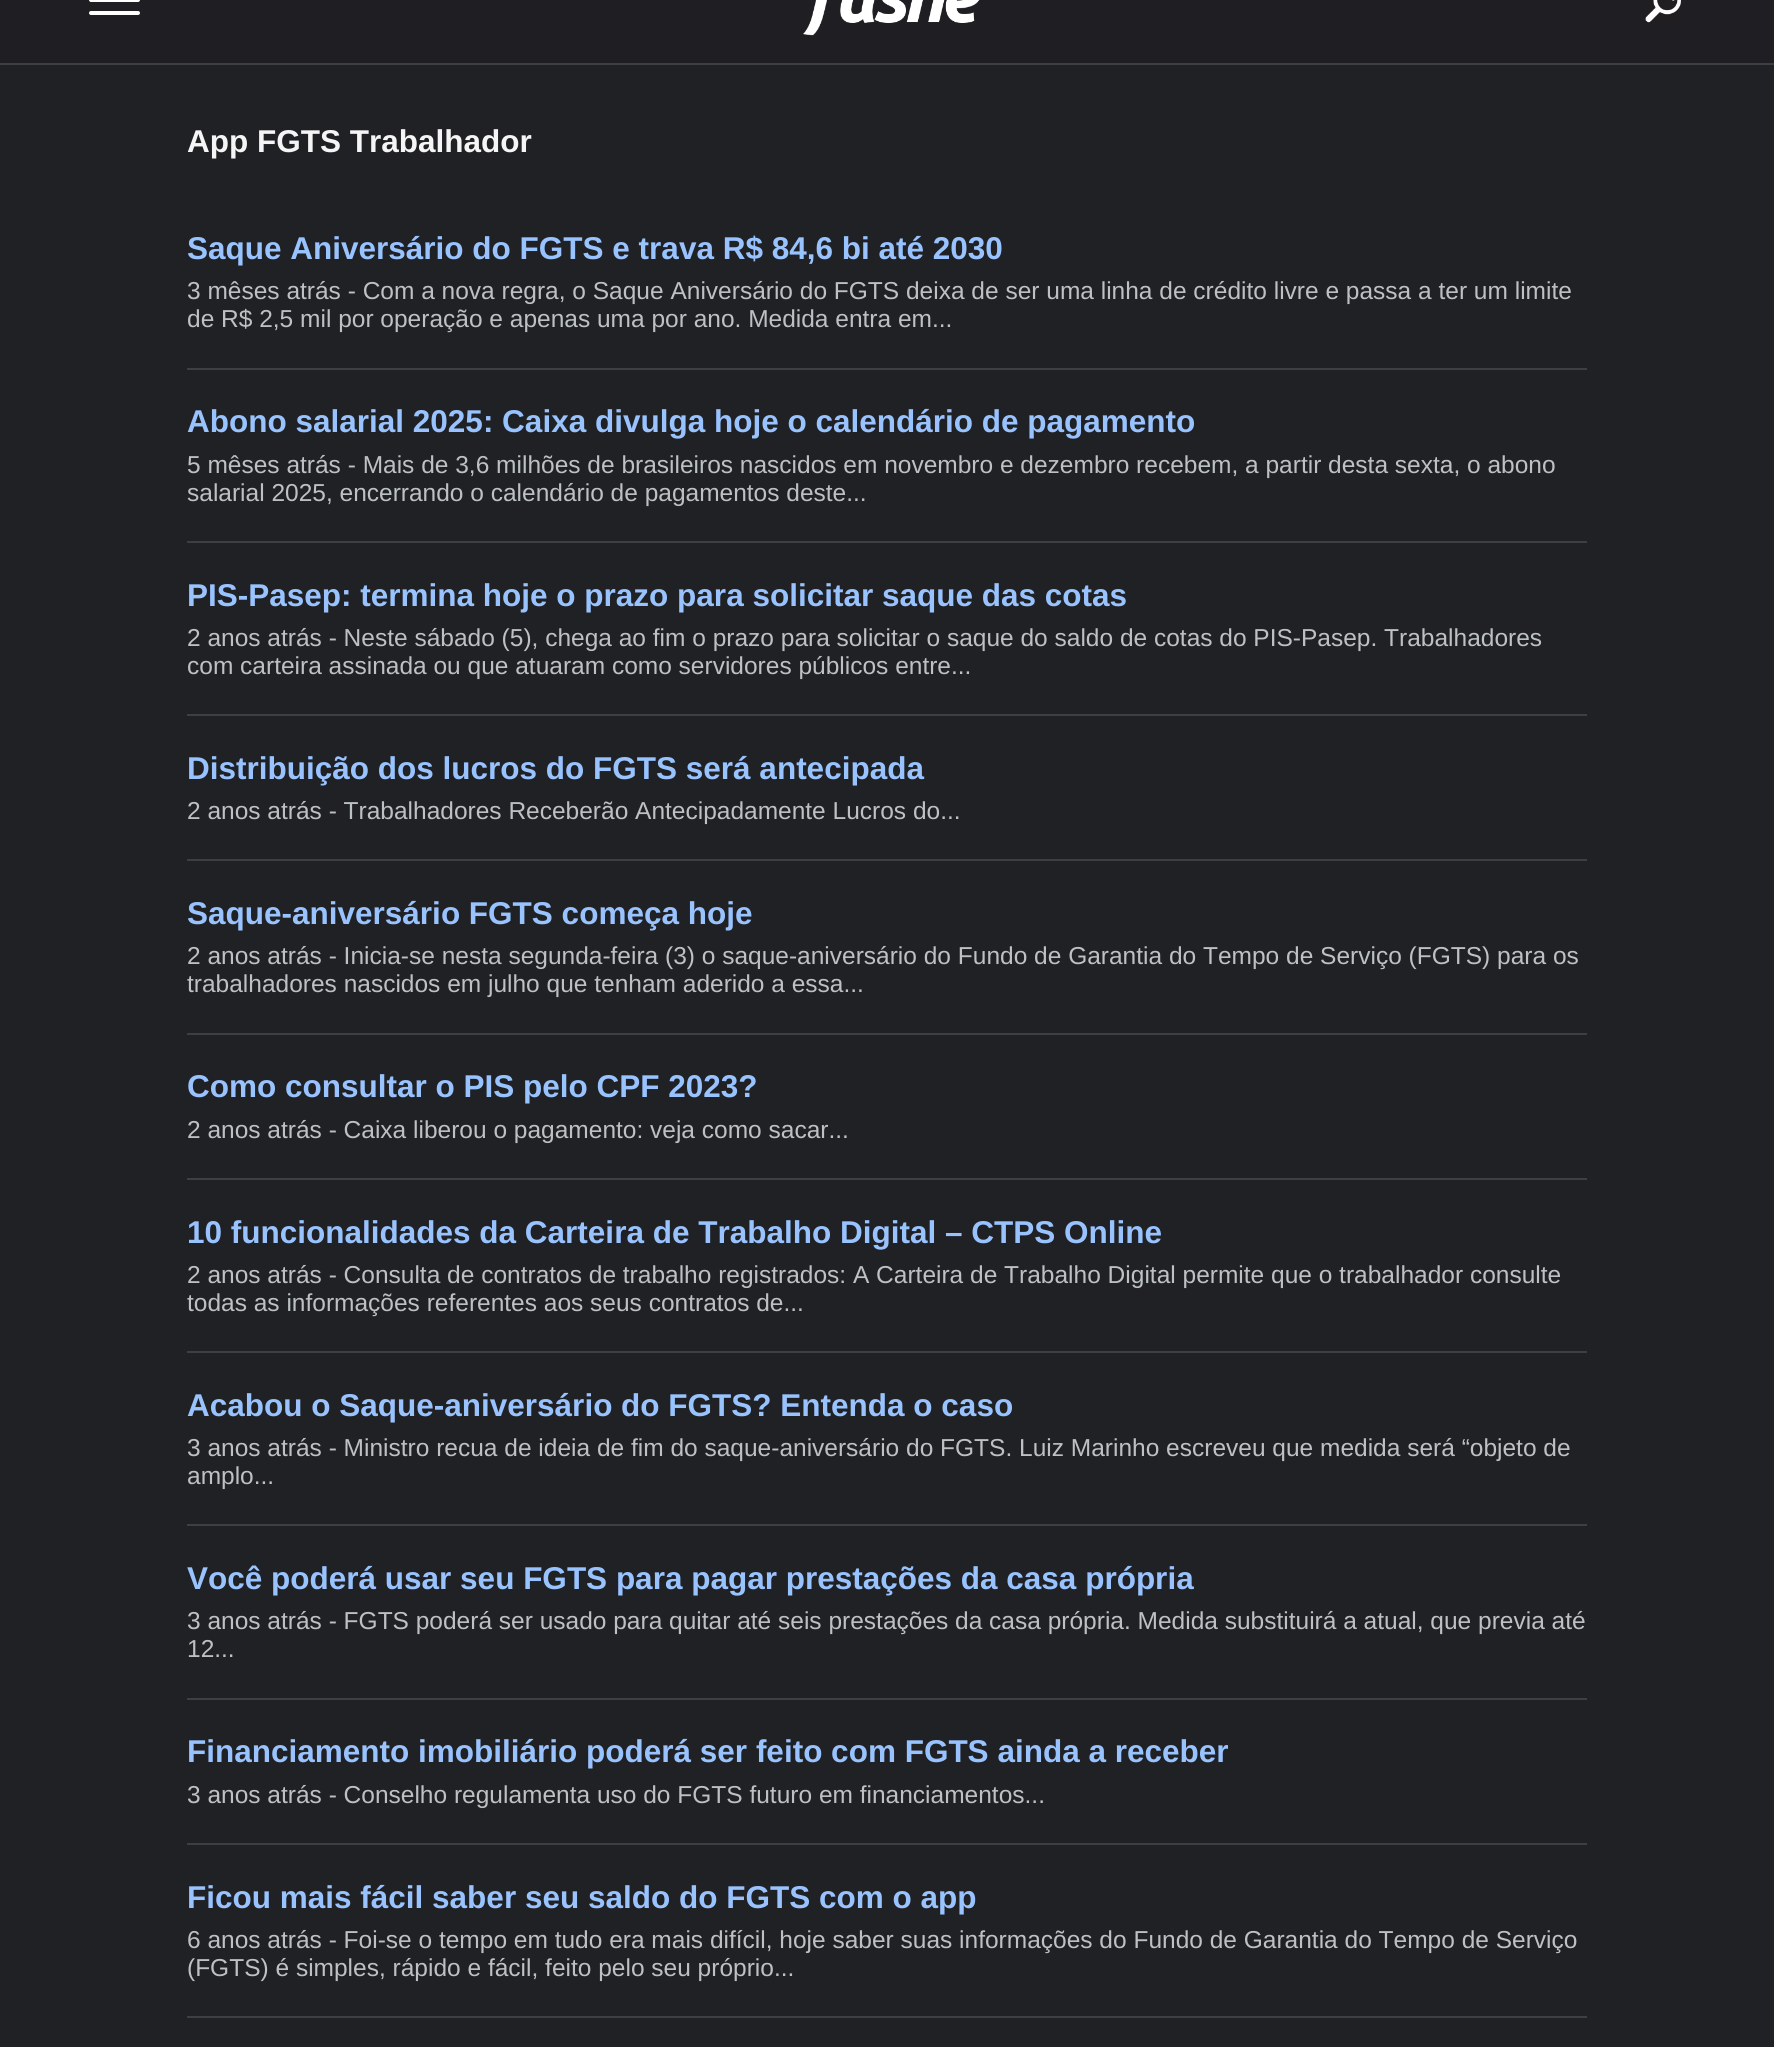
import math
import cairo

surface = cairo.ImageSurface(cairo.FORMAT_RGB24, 1774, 2047)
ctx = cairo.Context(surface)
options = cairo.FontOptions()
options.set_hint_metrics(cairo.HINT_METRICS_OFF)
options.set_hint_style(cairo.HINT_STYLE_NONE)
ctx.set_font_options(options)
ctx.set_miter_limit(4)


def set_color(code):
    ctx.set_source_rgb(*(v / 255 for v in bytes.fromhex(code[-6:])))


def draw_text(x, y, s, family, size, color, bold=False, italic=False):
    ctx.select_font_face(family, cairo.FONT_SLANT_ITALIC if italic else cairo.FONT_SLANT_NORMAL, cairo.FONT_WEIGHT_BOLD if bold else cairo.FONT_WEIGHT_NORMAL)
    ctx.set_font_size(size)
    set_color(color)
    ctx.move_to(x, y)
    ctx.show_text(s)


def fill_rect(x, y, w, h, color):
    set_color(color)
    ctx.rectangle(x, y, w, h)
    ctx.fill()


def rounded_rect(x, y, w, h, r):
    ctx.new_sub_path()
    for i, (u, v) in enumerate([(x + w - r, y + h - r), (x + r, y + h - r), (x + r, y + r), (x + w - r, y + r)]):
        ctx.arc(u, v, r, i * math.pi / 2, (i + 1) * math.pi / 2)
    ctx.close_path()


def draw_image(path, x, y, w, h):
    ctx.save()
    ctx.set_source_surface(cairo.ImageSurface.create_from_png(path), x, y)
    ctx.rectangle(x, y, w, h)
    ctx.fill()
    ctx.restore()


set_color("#202124")
ctx.paint()
fill_rect(0, 0, 1774, 63, "#1e1e23")
fill_rect(0, 63, 1774, 2, "#3c4043")
set_color("#ffffff")
rounded_rect(89, -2, 51, 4, 2)
ctx.fill()
rounded_rect(89, 11, 51, 4, 2)
ctx.fill()
draw_image("assets/img1.png", 803, 0, 177, 36)
draw_image("assets/img2.png", 1645, 0, 36, 23)
draw_text(187, 152, "App FGTS Trabalhador", "Liberation Sans", 31.5, "#f5f5f5", bold=True)
fill_rect(187, 368, 1400, 2, "#3c4043")
draw_text(187, 259, "Saque Aniversário do FGTS e trava R$ 84,6 bi até 2030", "Liberation Sans", 31.5, "#99c3ff", bold=True)
draw_text(187, 299, "3 mêses atrás - Com a nova regra, o Saque Aniversário do FGTS deixa de ser uma linha de crédito livre e passa a ter um limite", "Liberation Sans", 24.5, "#bdc1c4")
draw_text(187, 327, "de R$ 2,5 mil por operação e apenas uma por ano. Medida entra em...", "Liberation Sans", 24.5, "#bdc1c4")
fill_rect(187, 541, 1400, 2, "#3c4043")
draw_text(187, 432, "Abono salarial 2025: Caixa divulga hoje o calendário de pagamento", "Liberation Sans", 31.5, "#99c3ff", bold=True)
draw_text(187, 473, "5 mêses atrás - Mais de 3,6 milhões de brasileiros nascidos em novembro e dezembro recebem, a partir desta sexta, o abono", "Liberation Sans", 24.5, "#bdc1c4")
draw_text(187, 501, "salarial 2025, encerrando o calendário de pagamentos deste...", "Liberation Sans", 24.5, "#bdc1c4")
fill_rect(187, 714, 1400, 2, "#3c4043")
draw_text(187, 606, "PIS-Pasep: termina hoje o prazo para solicitar saque das cotas", "Liberation Sans", 31.5, "#99c3ff", bold=True)
draw_text(187, 646, "2 anos atrás - Neste sábado (5), chega ao fim o prazo para solicitar o saque do saldo de cotas do PIS-Pasep. Trabalhadores", "Liberation Sans", 24.5, "#bdc1c4")
draw_text(187, 674, "com carteira assinada ou que atuaram como servidores públicos entre...", "Liberation Sans", 24.5, "#bdc1c4")
fill_rect(187, 859, 1400, 2, "#3c4043")
draw_text(187, 779, "Distribuição dos lucros do FGTS será antecipada", "Liberation Sans", 31.5, "#99c3ff", bold=True)
draw_text(187, 819, "2 anos atrás - Trabalhadores Receberão Antecipadamente Lucros do...", "Liberation Sans", 24.5, "#bdc1c4")
fill_rect(187, 1033, 1400, 2, "#3c4043")
draw_text(187, 924, "Saque-aniversário FGTS começa hoje", "Liberation Sans", 31.5, "#99c3ff", bold=True)
draw_text(187, 964, "2 anos atrás - Inicia-se nesta segunda-feira (3) o saque-aniversário do Fundo de Garantia do Tempo de Serviço (FGTS) para os", "Liberation Sans", 24.5, "#bdc1c4")
draw_text(187, 992, "trabalhadores nascidos em julho que tenham aderido a essa...", "Liberation Sans", 24.5, "#bdc1c4")
fill_rect(187, 1178, 1400, 2, "#3c4043")
draw_text(187, 1097, "Como consultar o PIS pelo CPF 2023?", "Liberation Sans", 31.5, "#99c3ff", bold=True)
draw_text(187, 1138, "2 anos atrás - Caixa liberou o pagamento: veja como sacar...", "Liberation Sans", 24.5, "#bdc1c4")
fill_rect(187, 1351, 1400, 2, "#3c4043")
draw_text(187, 1243, "10 funcionalidades da Carteira de Trabalho Digital – CTPS Online", "Liberation Sans", 31.5, "#99c3ff", bold=True)
draw_text(187, 1283, "2 anos atrás - Consulta de contratos de trabalho registrados: A Carteira de Trabalho Digital permite que o trabalhador consulte", "Liberation Sans", 24.5, "#bdc1c4")
draw_text(187, 1311, "todas as informações referentes aos seus contratos de...", "Liberation Sans", 24.5, "#bdc1c4")
fill_rect(187, 1524, 1400, 2, "#3c4043")
draw_text(187, 1416, "Acabou o Saque-aniversário do FGTS? Entenda o caso", "Liberation Sans", 31.5, "#99c3ff", bold=True)
draw_text(187, 1456, "3 anos atrás - Ministro recua de ideia de fim do saque-aniversário do FGTS. Luiz Marinho escreveu que medida será “objeto de", "Liberation Sans", 24.5, "#bdc1c4")
draw_text(187, 1484, "amplo...", "Liberation Sans", 24.5, "#bdc1c4")
fill_rect(187, 1698, 1400, 2, "#3c4043")
draw_text(187, 1589, "Você poderá usar seu FGTS para pagar prestações da casa própria", "Liberation Sans", 31.5, "#99c3ff", bold=True)
draw_text(187, 1629, "3 anos atrás - FGTS poderá ser usado para quitar até seis prestações da casa própria. Medida substituirá a atual, que previa até", "Liberation Sans", 24.5, "#bdc1c4")
draw_text(187, 1657, "12...", "Liberation Sans", 24.5, "#bdc1c4")
fill_rect(187, 1843, 1400, 2, "#3c4043")
draw_text(187, 1762, "Financiamento imobiliário poderá ser feito com FGTS ainda a receber", "Liberation Sans", 31.5, "#99c3ff", bold=True)
draw_text(187, 1803, "3 anos atrás - Conselho regulamenta uso do FGTS futuro em financiamentos...", "Liberation Sans", 24.5, "#bdc1c4")
fill_rect(187, 2016, 1400, 2, "#3c4043")
draw_text(187, 1908, "Ficou mais fácil saber seu saldo do FGTS com o app", "Liberation Sans", 31.5, "#99c3ff", bold=True)
draw_text(187, 1948, "6 anos atrás - Foi-se o tempo em tudo era mais difícil, hoje saber suas informações do Fundo de Garantia do Tempo de Serviço", "Liberation Sans", 24.5, "#bdc1c4")
draw_text(187, 1976, "(FGTS) é simples, rápido e fácil, feito pelo seu próprio...", "Liberation Sans", 24.5, "#bdc1c4")
surface.write_to_png("output.png")
